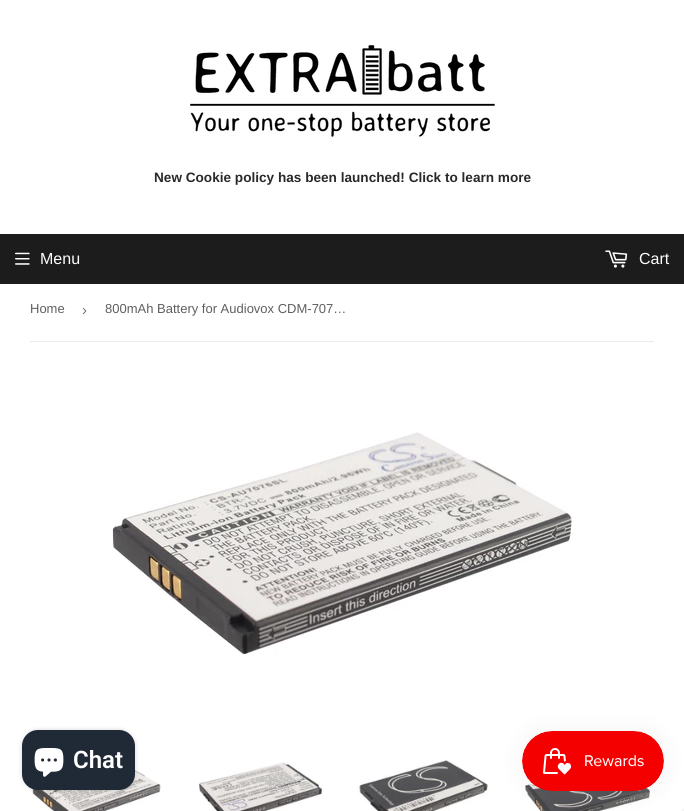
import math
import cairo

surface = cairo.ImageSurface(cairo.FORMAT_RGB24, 684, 811)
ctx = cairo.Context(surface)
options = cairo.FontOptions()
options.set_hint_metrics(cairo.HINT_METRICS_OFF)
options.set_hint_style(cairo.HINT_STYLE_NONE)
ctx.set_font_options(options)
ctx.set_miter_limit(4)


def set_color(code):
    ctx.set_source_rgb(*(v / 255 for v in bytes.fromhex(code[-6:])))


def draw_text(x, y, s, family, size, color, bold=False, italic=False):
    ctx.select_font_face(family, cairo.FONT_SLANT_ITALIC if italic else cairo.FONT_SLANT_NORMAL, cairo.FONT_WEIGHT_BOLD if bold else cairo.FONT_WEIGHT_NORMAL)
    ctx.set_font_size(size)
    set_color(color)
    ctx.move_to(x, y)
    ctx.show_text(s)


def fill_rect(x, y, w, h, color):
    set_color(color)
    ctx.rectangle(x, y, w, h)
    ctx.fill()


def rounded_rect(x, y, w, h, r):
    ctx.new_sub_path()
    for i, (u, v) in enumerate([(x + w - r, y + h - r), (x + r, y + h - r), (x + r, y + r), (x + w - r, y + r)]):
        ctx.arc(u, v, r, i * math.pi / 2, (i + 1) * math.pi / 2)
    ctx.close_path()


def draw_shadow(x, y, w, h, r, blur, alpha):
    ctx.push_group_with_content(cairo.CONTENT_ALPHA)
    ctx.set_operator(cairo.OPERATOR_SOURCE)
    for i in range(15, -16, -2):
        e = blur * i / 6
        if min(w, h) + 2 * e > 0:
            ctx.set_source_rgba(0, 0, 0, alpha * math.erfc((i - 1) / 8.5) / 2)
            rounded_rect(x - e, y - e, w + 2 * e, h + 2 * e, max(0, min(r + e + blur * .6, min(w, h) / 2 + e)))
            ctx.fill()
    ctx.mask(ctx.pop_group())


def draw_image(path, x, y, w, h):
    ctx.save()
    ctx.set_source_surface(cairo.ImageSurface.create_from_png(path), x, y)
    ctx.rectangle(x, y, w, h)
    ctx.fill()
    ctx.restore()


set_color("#ffffff")
ctx.paint()
draw_image("assets/img1.png", 190, 45, 305, 92)
draw_text(154, 182, "New Cookie policy has been launched! Click to learn more", "Liberation Sans", 13.6, "#28292a", bold=True)
fill_rect(0, 234, 684, 50, "#1c1c1c")
draw_image("assets/img2.png", 15, 252, 15, 13)
draw_text(40, 264, "Menu", "Liberation Sans", 16, "#ffffff")
draw_image("assets/img3.png", 605, 250, 23, 18)
draw_text(639, 264, "Cart", "Liberation Sans", 16, "#ffffff")
fill_rect(30, 341, 624, 1, "#ececec")
draw_text(30, 313, "Home", "Liberation Sans", 13, "#5f5f5f")
draw_text(82, 315, "›", "Liberation Sans", 15, "#767676")
draw_text(105, 313, "800mAh Battery for Audiovox CDM-707…", "Liberation Sans", 13, "#5f5f5f")
draw_image("assets/img4.png", 110, 432, 464, 224)
draw_image("assets/img5.png", 32, 762, 129, 49)
draw_image("assets/img6.png", 199, 762, 125, 49)
draw_image("assets/img7.png", 357, 760, 132, 51)
draw_image("assets/img8.png", 525, 774, 126, 37)
set_color("#000000")
draw_shadow(22, 730, 113, 60, 16, 2.5, 0.15)
set_color("#202a36")
rounded_rect(22, 730, 113, 60, 16)
ctx.fill()
draw_image("assets/img9.png", 34, 748, 30, 29)
draw_text(73, 768, "Chat", "Roboto SemiBold", 24, "#ffffff")
fill_rect(682, 809, 2, 2, "#f5f5f5")
set_color("#000000")
draw_shadow(522, 731, 142, 60, 30, 12.5, 0.05)
draw_image("assets/img10.png", 522, 731, 142, 60)
surface.write_to_png("output.png")
